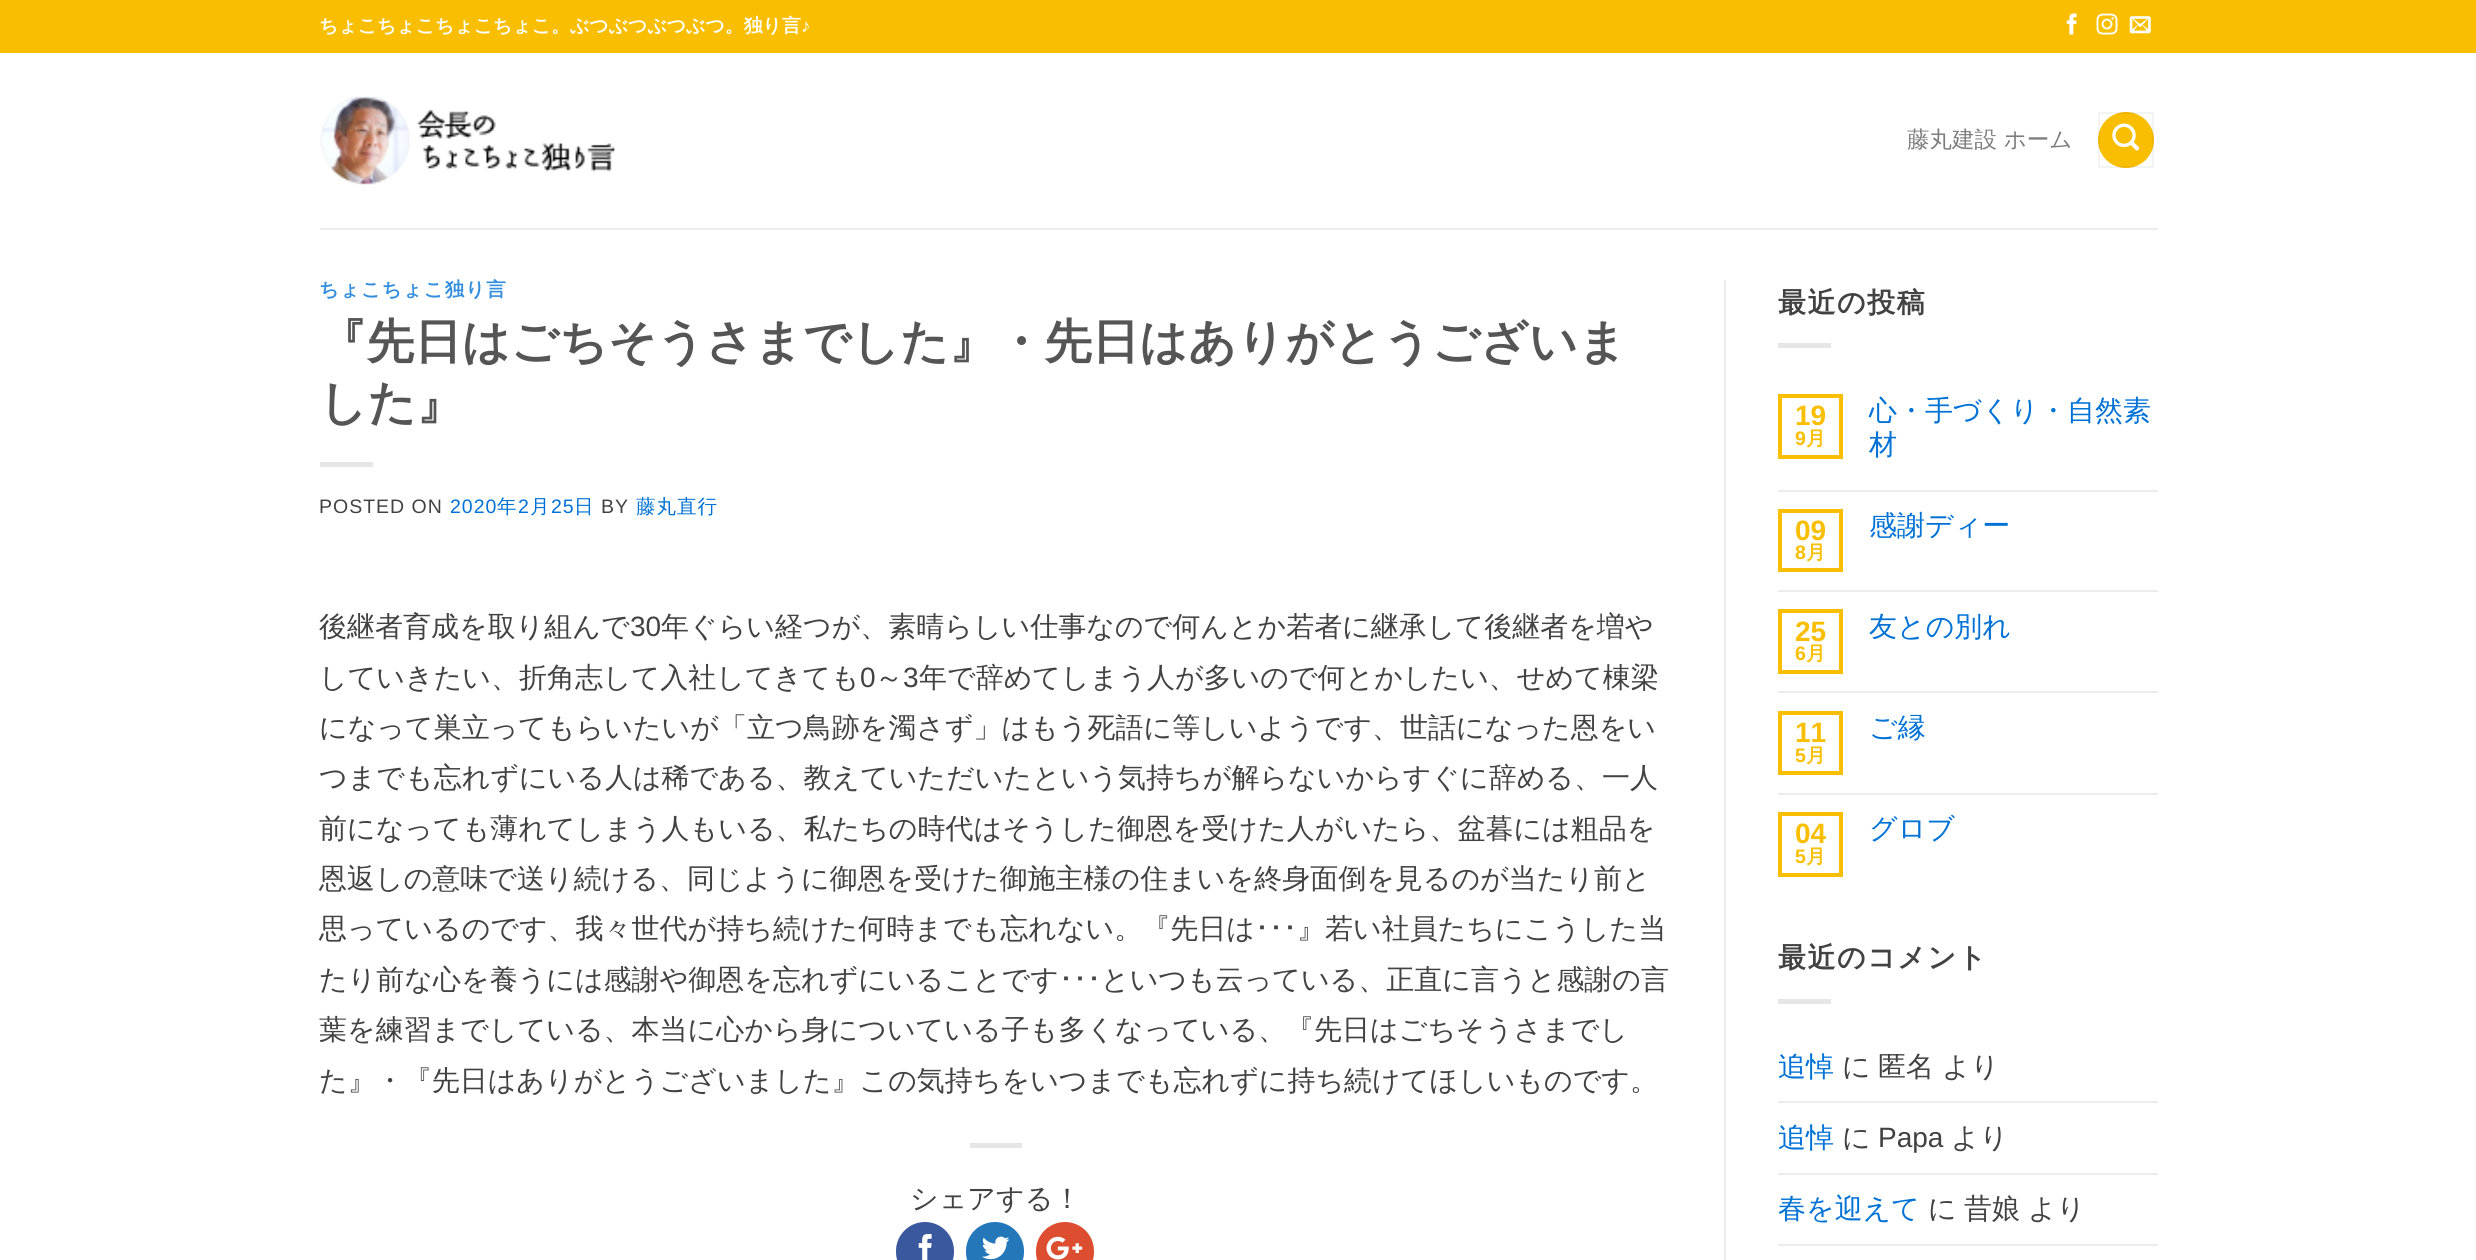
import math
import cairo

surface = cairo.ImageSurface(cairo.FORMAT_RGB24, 2476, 1260)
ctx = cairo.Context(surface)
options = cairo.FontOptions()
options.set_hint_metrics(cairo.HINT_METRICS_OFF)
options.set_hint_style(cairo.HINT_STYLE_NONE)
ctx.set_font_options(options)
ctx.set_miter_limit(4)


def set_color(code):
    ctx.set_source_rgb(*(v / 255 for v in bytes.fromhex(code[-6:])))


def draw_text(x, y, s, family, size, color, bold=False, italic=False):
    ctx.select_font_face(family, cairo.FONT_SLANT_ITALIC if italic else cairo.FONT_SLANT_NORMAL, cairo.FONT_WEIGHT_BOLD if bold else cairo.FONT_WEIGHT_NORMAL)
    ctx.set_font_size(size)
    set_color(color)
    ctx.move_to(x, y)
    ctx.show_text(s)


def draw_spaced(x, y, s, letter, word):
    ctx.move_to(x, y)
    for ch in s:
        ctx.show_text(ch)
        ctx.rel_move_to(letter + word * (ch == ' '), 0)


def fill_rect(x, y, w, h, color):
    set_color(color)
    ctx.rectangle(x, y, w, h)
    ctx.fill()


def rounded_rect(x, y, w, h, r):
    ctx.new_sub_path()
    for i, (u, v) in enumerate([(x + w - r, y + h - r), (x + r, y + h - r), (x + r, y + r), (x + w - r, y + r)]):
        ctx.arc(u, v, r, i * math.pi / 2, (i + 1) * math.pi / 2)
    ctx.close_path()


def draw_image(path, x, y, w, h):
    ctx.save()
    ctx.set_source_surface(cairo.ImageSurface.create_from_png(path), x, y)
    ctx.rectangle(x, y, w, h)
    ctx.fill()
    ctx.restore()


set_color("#ffffff")
ctx.paint()
fill_rect(0, 0, 2476, 53, "#f9be00")
draw_text(319, 32, "ちょこちょこちょこちょこ。ぶつぶつぶつぶつ。独り言", "WenQuanYi Zen Hei", 18.9, "#ffffff", bold=True)
draw_text(801, 32, "♪", "Liberation Sans", 18.9, "#ffffff", bold=True)
draw_image("assets/img1.png", 2066, 13, 11, 22)
draw_image("assets/img2.png", 2096, 13, 22, 22)
draw_image("assets/img3.png", 2129, 16, 22, 18)
draw_image("assets/img4.png", 320, 96, 295, 89)
draw_text(1907, 147, "藤丸建設 ホーム", "WenQuanYi Zen Hei Medium", 22.5, "#7d7d7d")
set_color("#f9be00")
ctx.new_path()
ctx.arc(2126, 140, 28, 0, 2 * math.pi)
ctx.fill()
ctx.rectangle(2099, 113, 54, 54)
ctx.set_source_rgba(0, 0, 0, 0.05)
ctx.stroke()
draw_image("assets/img5.png", 2112, 123, 28, 28)
fill_rect(320, 228, 1838, 2, "#ececec")
ctx.select_font_face("WenQuanYi Zen Hei", cairo.FONT_SLANT_NORMAL, cairo.FONT_WEIGHT_BOLD)
ctx.set_font_size(19.5)
set_color("#338ede")
draw_spaced(319, 296, "ちょこちょこ独り言", 1, 0)
draw_text(319, 358, "『先日はごちそうさまでした』・先日はありがとうございま", "WenQuanYi Zen Hei", 47.6, "#555555", bold=True)
draw_text(319, 419, "した』", "WenQuanYi Zen Hei", 47.6, "#555555", bold=True)
fill_rect(320, 462, 53, 5, "#e6e6e6")
ctx.select_font_face("Liberation Sans")
ctx.set_font_size(19.5)
set_color("#424242")
draw_spaced(319, 513, "POSTED ON", 1, 0)
set_color("#0072d6")
draw_spaced(450, 513, "2020", 1, 0)
ctx.select_font_face("WenQuanYi Zen Hei Medium")
draw_spaced(497, 513, "年", 1, 0)
ctx.select_font_face("Liberation Sans")
draw_spaced(518, 513, "2", 1, 0)
ctx.select_font_face("WenQuanYi Zen Hei Medium")
draw_spaced(530, 513, "月", 1, 0)
ctx.select_font_face("Liberation Sans")
draw_spaced(551, 513, "25", 1, 0)
ctx.select_font_face("WenQuanYi Zen Hei Medium")
draw_spaced(574, 513, "日", 1, 0)
ctx.select_font_face("Liberation Sans")
set_color("#424242")
draw_spaced(601, 513, "BY", 1, 0)
ctx.select_font_face("WenQuanYi Zen Hei Medium")
set_color("#0072d6")
draw_spaced(636, 513, "藤丸直行", 1, 0)
draw_text(319, 636, "後継者育成を取り組んで", "WenQuanYi Zen Hei Medium", 28, "#424242")
draw_text(630, 636, "30", "Liberation Sans", 28, "#424242")
draw_text(661, 636, "年ぐらい経つが、素晴らしい仕事なので何んとか若者に継承して後継者を増や", "WenQuanYi Zen Hei Medium", 28, "#424242")
draw_text(319, 687, "していきたい、折角志して入社してきても", "WenQuanYi Zen Hei Medium", 28, "#424242")
draw_text(860, 687, "0", "Liberation Sans", 28, "#424242")
draw_text(875, 687, "～", "WenQuanYi Zen Hei Medium", 28, "#424242")
draw_text(903, 687, "3", "Liberation Sans", 28, "#424242")
draw_text(919, 687, "年で辞めてしまう人が多いので何とかしたい、せめて棟梁", "WenQuanYi Zen Hei Medium", 28, "#424242")
draw_text(319, 737, "になって巣立ってもらいたいが「立つ鳥跡を濁さず」はもう死語に等しいようです、世話になった恩をい", "WenQuanYi Zen Hei Medium", 28, "#424242")
draw_text(319, 787, "つまでも忘れずにいる人は稀である、教えていただいたという気持ちが解らないからすぐに辞める、一人", "WenQuanYi Zen Hei Medium", 28, "#424242")
draw_text(319, 838, "前になっても薄れてしまう人もいる、私たちの時代はそうした御恩を受けた人がいたら、盆暮には粗品を", "WenQuanYi Zen Hei Medium", 28, "#424242")
draw_text(319, 888, "恩返しの意味で送り続ける、同じように御恩を受けた御施主様の住まいを終身面倒を見るのが当たり前と", "WenQuanYi Zen Hei Medium", 28, "#424242")
draw_text(319, 938, "思っているのです、我々世代が持ち続けた何時までも忘れない。『先日は", "WenQuanYi Zen Hei Medium", 28, "#424242")
draw_text(1255, 938, "･･･", "IPAPGothic", 28, "#424242")
draw_text(1297, 938, "』若い社員たちにこうした当", "WenQuanYi Zen Hei Medium", 28, "#424242")
draw_text(319, 989, "たり前な心を養うには感謝や御恩を忘れずにいることです", "WenQuanYi Zen Hei Medium", 28, "#424242")
draw_text(1059, 989, "･･･", "IPAPGothic", 28, "#424242")
draw_text(1101, 989, "といつも云っている、正直に言うと感謝の言", "WenQuanYi Zen Hei Medium", 28, "#424242")
draw_text(319, 1039, "葉を練習までしている、本当に心から身についている子も多くなっている、『先日はごちそうさまでし", "WenQuanYi Zen Hei Medium", 28, "#424242")
draw_text(319, 1090, "た』・『先日はありがとうございました』この気持ちをいつまでも忘れずに持ち続けてほしいものです。", "WenQuanYi Zen Hei Medium", 28, "#424242")
fill_rect(970, 1143, 52, 5, "#e6e6e6")
draw_text(910, 1208, "シェアする！", "WenQuanYi Zen Hei Medium", 28, "#424242")
set_color("#3a589d")
rounded_rect(897, 1223, 56, 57, 28)
ctx.fill_preserve()
ctx.stroke()
draw_image("assets/img6.png", 918, 1234, 14, 26)
set_color("#2478ba")
rounded_rect(967, 1223, 56, 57, 28)
ctx.fill_preserve()
ctx.stroke()
draw_image("assets/img7.png", 982, 1236, 28, 24)
set_color("#dd4e31")
rounded_rect(1037, 1223, 56, 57, 28)
ctx.fill_preserve()
ctx.stroke()
draw_image("assets/img8.png", 1046, 1236, 37, 24)
fill_rect(1724, 280, 2, 980, "#ececec")
ctx.select_font_face("WenQuanYi Zen Hei", cairo.FONT_SLANT_NORMAL, cairo.FONT_WEIGHT_BOLD)
set_color("#424242")
draw_spaced(1778, 312, "最近の投稿", 1.5, 0)
fill_rect(1778, 343, 53, 5, "#e6e6e6")
ctx.rectangle(1780, 396, 61, 61)
set_color("#f9be00")
ctx.set_line_width(4)
ctx.stroke()
draw_text(1795, 425, "19", "Liberation Sans", 28, "#f9be00", bold=True)
draw_text(1795, 445, "9", "Liberation Sans", 19.5, "#f9be00", bold=True)
draw_text(1806, 445, "月", "WenQuanYi Zen Hei", 19.5, "#f9be00", bold=True)
draw_text(1869, 420, "心・手づくり・自然素", "WenQuanYi Zen Hei Medium", 28, "#0072d6")
draw_text(1869, 454, "材", "WenQuanYi Zen Hei Medium", 28, "#0072d6")
fill_rect(1778, 490, 380, 2, "#ececec")
ctx.rectangle(1780, 511, 61, 59)
set_color("#f9be00")
ctx.stroke()
draw_text(1795, 540, "09", "Liberation Sans", 28, "#f9be00", bold=True)
draw_text(1795, 559, "8", "Liberation Sans", 19.5, "#f9be00", bold=True)
draw_text(1806, 559, "月", "WenQuanYi Zen Hei", 19.5, "#f9be00", bold=True)
draw_text(1869, 535, "感謝ディー", "WenQuanYi Zen Hei Medium", 28, "#0072d6")
fill_rect(1778, 590, 380, 2, "#ececec")
ctx.rectangle(1780, 611, 61, 61)
set_color("#f9be00")
ctx.stroke()
draw_text(1795, 641, "25", "Liberation Sans", 28, "#f9be00", bold=True)
draw_text(1795, 660, "6", "Liberation Sans", 19.5, "#f9be00", bold=True)
draw_text(1806, 660, "月", "WenQuanYi Zen Hei", 19.5, "#f9be00", bold=True)
draw_text(1869, 636, "友との別れ", "WenQuanYi Zen Hei Medium", 28, "#0072d6")
fill_rect(1778, 691, 380, 2, "#ececec")
ctx.rectangle(1780, 713, 61, 60)
set_color("#f9be00")
ctx.stroke()
draw_text(1795, 742, "11", "Liberation Sans", 28, "#f9be00", bold=True)
draw_text(1795, 762, "5", "Liberation Sans", 19.5, "#f9be00", bold=True)
draw_text(1806, 762, "月", "WenQuanYi Zen Hei", 19.5, "#f9be00", bold=True)
draw_text(1869, 737, "ご縁", "WenQuanYi Zen Hei Medium", 28, "#0072d6")
fill_rect(1778, 793, 380, 2, "#ececec")
ctx.rectangle(1780, 814, 61, 61)
set_color("#f9be00")
ctx.stroke()
draw_text(1795, 843, "04", "Liberation Sans", 28, "#f9be00", bold=True)
draw_text(1795, 863, "5", "Liberation Sans", 19.5, "#f9be00", bold=True)
draw_text(1806, 863, "月", "WenQuanYi Zen Hei", 19.5, "#f9be00", bold=True)
draw_text(1869, 838, "グロブ", "WenQuanYi Zen Hei Medium", 28, "#0072d6")
ctx.select_font_face("WenQuanYi Zen Hei", cairo.FONT_SLANT_NORMAL, cairo.FONT_WEIGHT_BOLD)
set_color("#424242")
draw_spaced(1778, 967, "最近のコメント", 1.5, 0)
fill_rect(1778, 999, 53, 5, "#e6e6e6")
draw_text(1778, 1076, "追悼", "WenQuanYi Zen Hei Medium", 28, "#0072d6")
draw_text(1842, 1076, "に", "WenQuanYi Zen Hei Medium", 28, "#424242")
draw_text(1878, 1076, "匿名", "WenQuanYi Zen Hei Medium", 28, "#424242")
draw_text(1942, 1076, "より", "WenQuanYi Zen Hei Medium", 28, "#424242")
fill_rect(1778, 1101, 380, 2, "#ececec")
draw_text(1778, 1147, "追悼", "WenQuanYi Zen Hei Medium", 28, "#0072d6")
draw_text(1842, 1147, "に", "WenQuanYi Zen Hei Medium", 28, "#424242")
draw_text(1878, 1147, "Papa", "Liberation Sans", 28, "#424242")
draw_text(1951, 1147, "より", "WenQuanYi Zen Hei Medium", 28, "#424242")
fill_rect(1778, 1173, 380, 2, "#ececec")
draw_text(1778, 1218, "春を迎えて", "WenQuanYi Zen Hei Medium", 28, "#0072d6")
draw_text(1928, 1218, "に", "WenQuanYi Zen Hei Medium", 28, "#424242")
draw_text(1964, 1218, "昔娘", "WenQuanYi Zen Hei Medium", 28, "#424242")
draw_text(2028, 1218, "より", "WenQuanYi Zen Hei Medium", 28, "#424242")
fill_rect(1778, 1244, 380, 2, "#ececec")
surface.write_to_png("output.png")
